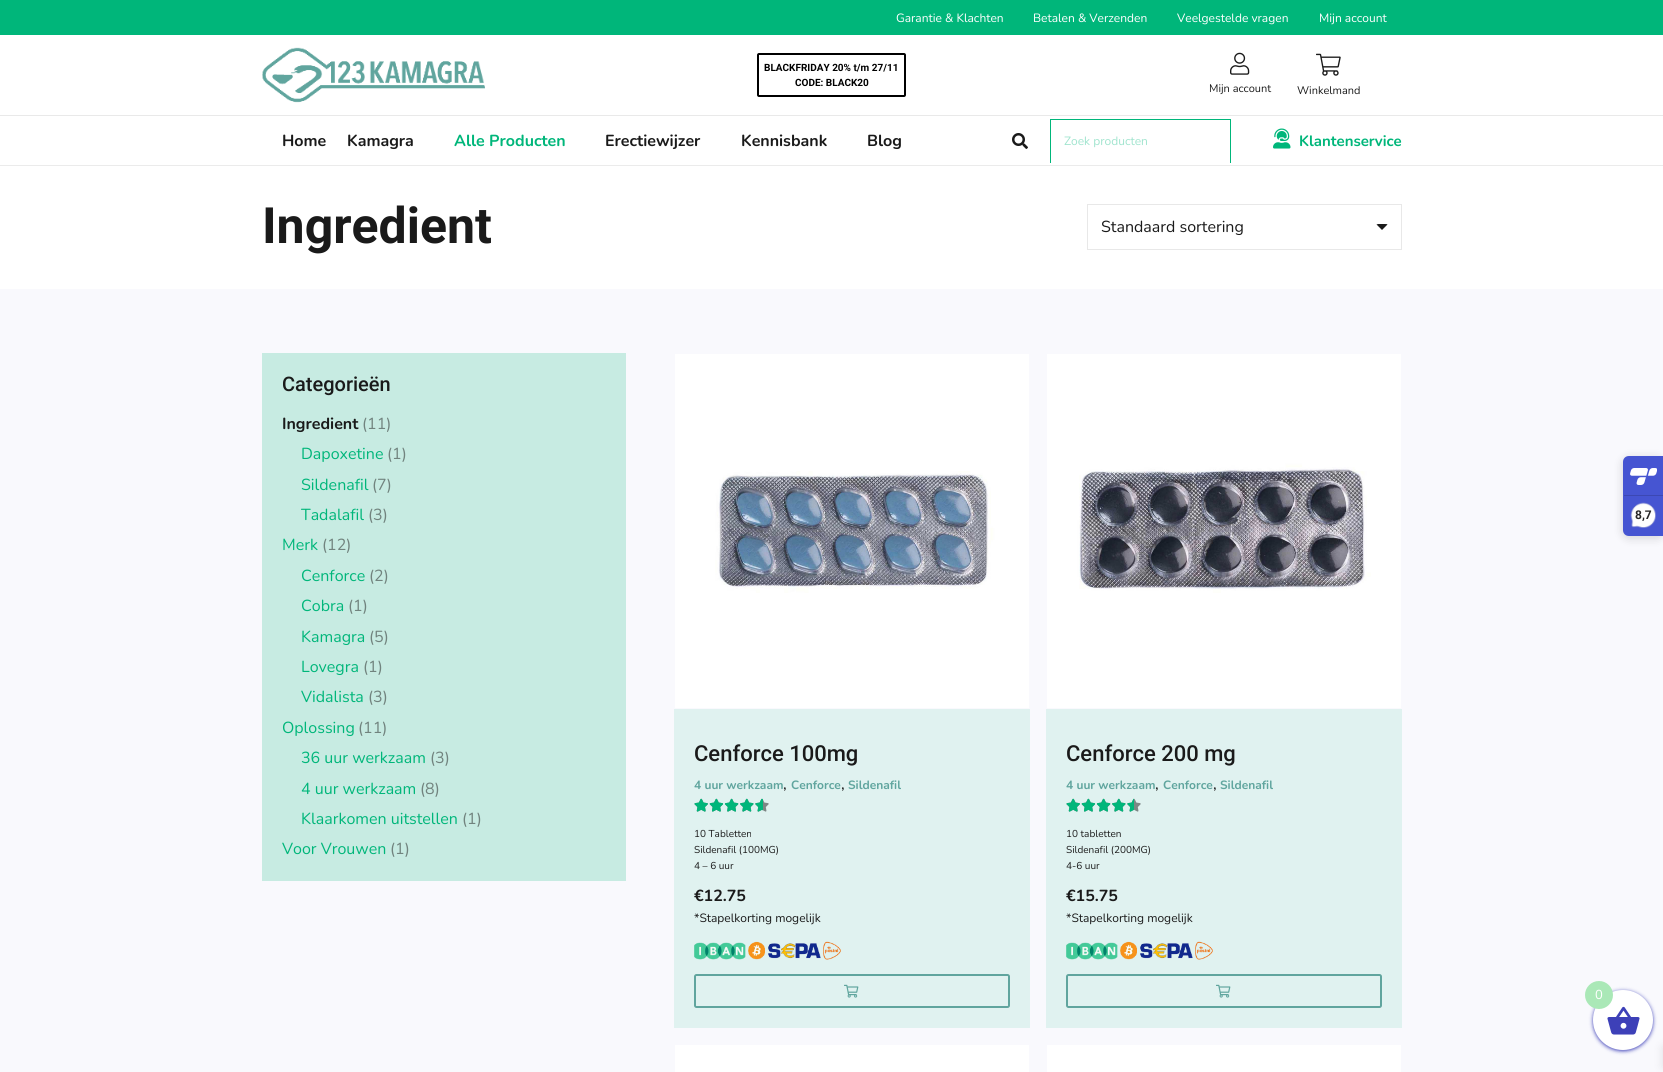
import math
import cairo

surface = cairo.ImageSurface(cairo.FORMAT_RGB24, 1663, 1072)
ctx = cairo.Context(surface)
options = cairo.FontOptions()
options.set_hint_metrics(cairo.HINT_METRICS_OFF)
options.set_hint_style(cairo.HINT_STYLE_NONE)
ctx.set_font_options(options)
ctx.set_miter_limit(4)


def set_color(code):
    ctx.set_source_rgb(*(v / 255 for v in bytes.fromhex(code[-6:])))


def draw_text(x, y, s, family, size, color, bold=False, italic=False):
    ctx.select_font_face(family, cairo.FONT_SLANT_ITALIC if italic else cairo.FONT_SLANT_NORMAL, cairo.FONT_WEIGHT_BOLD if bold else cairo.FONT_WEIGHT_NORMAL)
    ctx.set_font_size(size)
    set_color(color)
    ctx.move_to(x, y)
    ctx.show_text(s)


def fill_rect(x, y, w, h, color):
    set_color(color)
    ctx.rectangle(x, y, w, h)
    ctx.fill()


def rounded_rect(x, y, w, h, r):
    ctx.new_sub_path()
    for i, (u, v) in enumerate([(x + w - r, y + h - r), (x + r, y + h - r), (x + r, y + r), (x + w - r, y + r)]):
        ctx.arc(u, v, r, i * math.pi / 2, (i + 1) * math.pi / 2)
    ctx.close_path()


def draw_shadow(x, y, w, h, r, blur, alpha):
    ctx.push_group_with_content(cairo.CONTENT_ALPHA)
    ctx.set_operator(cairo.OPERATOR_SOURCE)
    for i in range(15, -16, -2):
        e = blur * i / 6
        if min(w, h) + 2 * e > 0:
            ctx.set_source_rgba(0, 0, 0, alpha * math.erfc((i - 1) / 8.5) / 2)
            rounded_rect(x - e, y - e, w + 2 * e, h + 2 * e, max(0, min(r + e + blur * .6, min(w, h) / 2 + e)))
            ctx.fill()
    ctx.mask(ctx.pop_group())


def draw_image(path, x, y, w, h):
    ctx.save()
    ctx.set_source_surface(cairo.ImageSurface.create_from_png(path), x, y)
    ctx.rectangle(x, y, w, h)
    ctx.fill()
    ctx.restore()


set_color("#ffffff")
ctx.paint()
fill_rect(0, 0, 1663, 35, "#00b67a")
draw_text(896, 22, "Garantie & Klachten", "Nunito", 12, "#ffffff")
draw_text(1033, 22, "Betalen & Verzenden", "Nunito", 12, "#ffffff")
draw_text(1177, 22, "Veelgestelde vragen", "Nunito", 12, "#ffffff")
draw_text(1319, 22, "Mijn account", "Nunito", 12, "#ffffff")
draw_image("assets/img1.png", 262, 47, 223, 56)
rounded_rect(758, 54, 147, 42, 1)
set_color("#000000")
ctx.stroke()
draw_text(764, 71, "BLACKFRIDAY 20% t/m 27/11", "Roboto", 10, "#000000", bold=True)
draw_text(795, 86, "CODE: BLACK20", "Roboto", 10, "#000000", bold=True)
draw_image("assets/img2.png", 1230, 52, 20, 23)
draw_text(1209, 92, "Mijn account", "Nunito", 11, "#1a1a1a")
draw_image("assets/img3.png", 1316, 53, 25, 23)
draw_text(1297, 94, "Winkelmand", "Nunito", 11, "#1a1a1a")
fill_rect(0, 165, 1663, 1, "#ebebeb")
fill_rect(0, 115, 1663, 1, "#e9e9e9")
draw_text(282, 146, "Home", "Nunito", 16, "#1a1a1a", bold=True)
draw_text(347, 146, "Kamagra", "Nunito", 16, "#1a1a1a", bold=True)
draw_text(454, 146, "Alle Producten", "Nunito", 16, "#00b67a", bold=True)
draw_text(605, 146, "Erectiewijzer", "Nunito", 16, "#1a1a1a", bold=True)
draw_text(741, 146, "Kennisbank", "Nunito", 16, "#1a1a1a", bold=True)
draw_text(867, 146, "Blog", "Nunito", 16, "#1a1a1a", bold=True)
draw_image("assets/img4.png", 1012, 133, 16, 16)
ctx.save()
ctx.rectangle(1050, 119, 181, 44)
ctx.clip()
ctx.rectangle(1050.5, 119.5, 180, 44)
set_color("#00b67a")
ctx.set_line_width(1)
ctx.stroke()
ctx.restore()
draw_text(1064, 145, "Zoek producten", "Nunito", 12, "#a0e4ce")
draw_image("assets/img5.png", 1273, 128, 18, 21)
draw_text(1299, 146, "Klantenservice", "Nunito", 15, "#00b67a", bold=True)
draw_text(262, 243, "Ingredient", "Roboto", 50, "#1a1a1a", bold=True)
ctx.rectangle(1087.5, 204.5, 314, 45)
set_color("#e8e8e8")
ctx.set_line_width(1)
ctx.stroke()
draw_text(1101, 232, "Standaard sortering", "Nunito", 16, "#1a1a1a")
ctx.new_path()
ctx.move_to(1378, 224)
ctx.line_to(1376.5, 224.5)
ctx.line_to(1382, 230)
ctx.line_to(1387.5, 224.5)
ctx.curve_to(1387, 224, 1386, 224, 1384.5, 224)
ctx.close_path()
ctx.fill()
fill_rect(0, 289, 1663, 783, "#f9f9fd")
fill_rect(262, 353, 364, 528, "#c7ebe2")
draw_text(282, 391, "Categorieën", "Roboto Medium", 20, "#1a1a1a")
draw_text(282, 429, "Ingredient", "Nunito", 16, "#1a1a1a", bold=True)
draw_text(362, 429, "(11)", "Nunito", 16, "#71837e")
draw_text(301, 459, "Dapoxetine", "Nunito", 16, "#00b67a")
draw_text(387, 459, "(1)", "Nunito", 16, "#71837e")
draw_text(301, 490, "Sildenafil", "Nunito", 16, "#00b67a")
draw_text(372, 490, "(7)", "Nunito", 16, "#71837e")
draw_text(301, 520, "Tadalafil", "Nunito", 16, "#00b67a")
draw_text(368, 520, "(3)", "Nunito", 16, "#71837e")
draw_text(282, 550, "Merk", "Nunito", 16, "#00b67a")
draw_text(322, 550, "(12)", "Nunito", 16, "#71837e")
draw_text(301, 581, "Cenforce", "Nunito", 16, "#00b67a")
draw_text(369, 581, "(2)", "Nunito", 16, "#71837e")
draw_text(301, 611, "Cobra", "Nunito", 16, "#00b67a")
draw_text(348, 611, "(1)", "Nunito", 16, "#71837e")
draw_text(301, 642, "Kamagra", "Nunito", 16, "#00b67a")
draw_text(369, 642, "(5)", "Nunito", 16, "#71837e")
draw_text(301, 672, "Lovegra", "Nunito", 16, "#00b67a")
draw_text(363, 672, "(1)", "Nunito", 16, "#71837e")
draw_text(301, 702, "Vidalista", "Nunito", 16, "#00b67a")
draw_text(368, 702, "(3)", "Nunito", 16, "#71837e")
draw_text(282, 733, "Oplossing", "Nunito", 16, "#00b67a")
draw_text(358, 733, "(11)", "Nunito", 16, "#71837e")
draw_text(301, 763, "36 uur werkzaam", "Nunito", 16, "#00b67a")
draw_text(430, 763, "(3)", "Nunito", 16, "#71837e")
draw_text(301, 794, "4 uur werkzaam", "Nunito", 16, "#00b67a")
draw_text(420, 794, "(8)", "Nunito", 16, "#71837e")
draw_text(301, 824, "Klaarkomen uitstellen", "Nunito", 16, "#00b67a")
draw_text(462, 824, "(1)", "Nunito", 16, "#71837e")
draw_text(282, 854, "Voor Vrouwen", "Nunito", 16, "#00b67a")
draw_text(390, 854, "(1)", "Nunito", 16, "#71837e")
draw_image("assets/img6.png", 675, 354, 354, 354)
fill_rect(674, 709, 356, 319, "#e0f2f0")
draw_text(694, 761, "Cenforce 100mg", "Roboto Medium", 22, "#1a1a1a")
draw_text(694, 789, "4 uur werkzaam", "Nunito", 12, "#60a59e", bold=True)
draw_text(783, 789, ",", "Nunito", 16, "#1a1a1a")
draw_text(791, 789, "Cenforce", "Nunito", 12, "#60a59e", bold=True)
draw_text(841, 789, ",", "Nunito", 16, "#1a1a1a")
draw_text(848, 789, "Sildenafil", "Nunito", 12, "#60a59e", bold=True)
draw_image("assets/img7.png", 694, 798, 75, 14)
draw_image("assets/img8.png", 694, 798, 69, 14)
draw_text(694, 837, "10 Tabletten", "Nunito", 10, "#1a1a1a")
draw_text(694, 853, "Sildenafil (100MG)", "Nunito", 10, "#1a1a1a")
draw_text(694, 869, "4 – 6 uur", "Nunito", 10, "#1a1a1a")
draw_text(694, 901, "€12.75", "Nunito", 16, "#1a1a1a", bold=True)
draw_text(694, 922, "*Stapelkorting mogelijk", "Nunito", 12, "#1a1a1a")
draw_image("assets/img9.png", 694, 941, 147, 19)
draw_image("assets/img10.png", 844, 984, 15, 14)
rounded_rect(695, 975, 314, 32, 1.5)
set_color("#60a59e")
ctx.set_line_width(2)
ctx.stroke()
draw_image("assets/img11.png", 1047, 354, 354, 354)
fill_rect(1046, 709, 356, 319, "#e0f2f0")
draw_text(1066, 761, "Cenforce 200 mg", "Roboto Medium", 22, "#1a1a1a")
draw_text(1066, 789, "4 uur werkzaam", "Nunito", 12, "#60a59e", bold=True)
draw_text(1155, 789, ",", "Nunito", 16, "#1a1a1a")
draw_text(1163, 789, "Cenforce", "Nunito", 12, "#60a59e", bold=True)
draw_text(1213, 789, ",", "Nunito", 16, "#1a1a1a")
draw_text(1220, 789, "Sildenafil", "Nunito", 12, "#60a59e", bold=True)
draw_image("assets/img7.png", 1066, 798, 75, 14)
draw_image("assets/img12.png", 1066, 798, 68, 14)
draw_text(1066, 837, "10 tabletten", "Nunito", 10, "#1a1a1a")
draw_text(1066, 853, "Sildenafil (200MG)", "Nunito", 10, "#1a1a1a")
draw_text(1066, 869, "4-6 uur", "Nunito", 10, "#1a1a1a")
draw_text(1066, 901, "€15.75", "Nunito", 16, "#1a1a1a", bold=True)
draw_text(1066, 922, "*Stapelkorting mogelijk", "Nunito", 12, "#1a1a1a")
draw_image("assets/img13.png", 1066, 941, 147, 19)
draw_image("assets/img10.png", 1216, 984, 15, 14)
rounded_rect(1067, 975, 314, 32, 1.5)
set_color("#60a59e")
ctx.stroke()
fill_rect(675, 1045, 354, 27, "#ffffff")
fill_rect(1047, 1045, 354, 27, "#ffffff")
set_color("#000000")
draw_shadow(1623, 458, 40, 80, 6, 5, 0.15)
set_color("#4655d2")
ctx.new_path()
ctx.move_to(1629, 456)
ctx.line_to(1663, 456)
ctx.line_to(1663, 536)
ctx.line_to(1629, 536)
ctx.curve_to(1625.5, 536, 1623, 533.5, 1623, 530)
ctx.line_to(1623, 462)
ctx.curve_to(1623, 458.5, 1625.5, 456, 1629, 456)
ctx.close_path()
ctx.fill()
draw_image("assets/img14.png", 1630, 468, 27, 17)
fill_rect(1624, 495, 39, 1, "#3c48b3")
draw_image("assets/img15.png", 1630, 502, 26, 26)
draw_text(1635, 519, "8,7", "Roboto", 12, "#272626", bold=True)
set_color("#3d40b8")
draw_shadow(1593, 991, 60, 60, 30, 2, 1)
set_color("#000000")
draw_shadow(1663, 1047, 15, 20, 0, 5, 0.1)
set_color("#ffffff")
ctx.arc(1623, 1020, 30, 0, 2 * math.pi)
ctx.fill()
draw_image("assets/img16.png", 1607, 1006, 33, 29)
set_color("#aae8b7")
ctx.arc(1599, 995, 14, 0, 2 * math.pi)
ctx.fill()
draw_text(1595, 999, "0", "Nunito", 13, "#ffffff")
surface.write_to_png("output.png")
